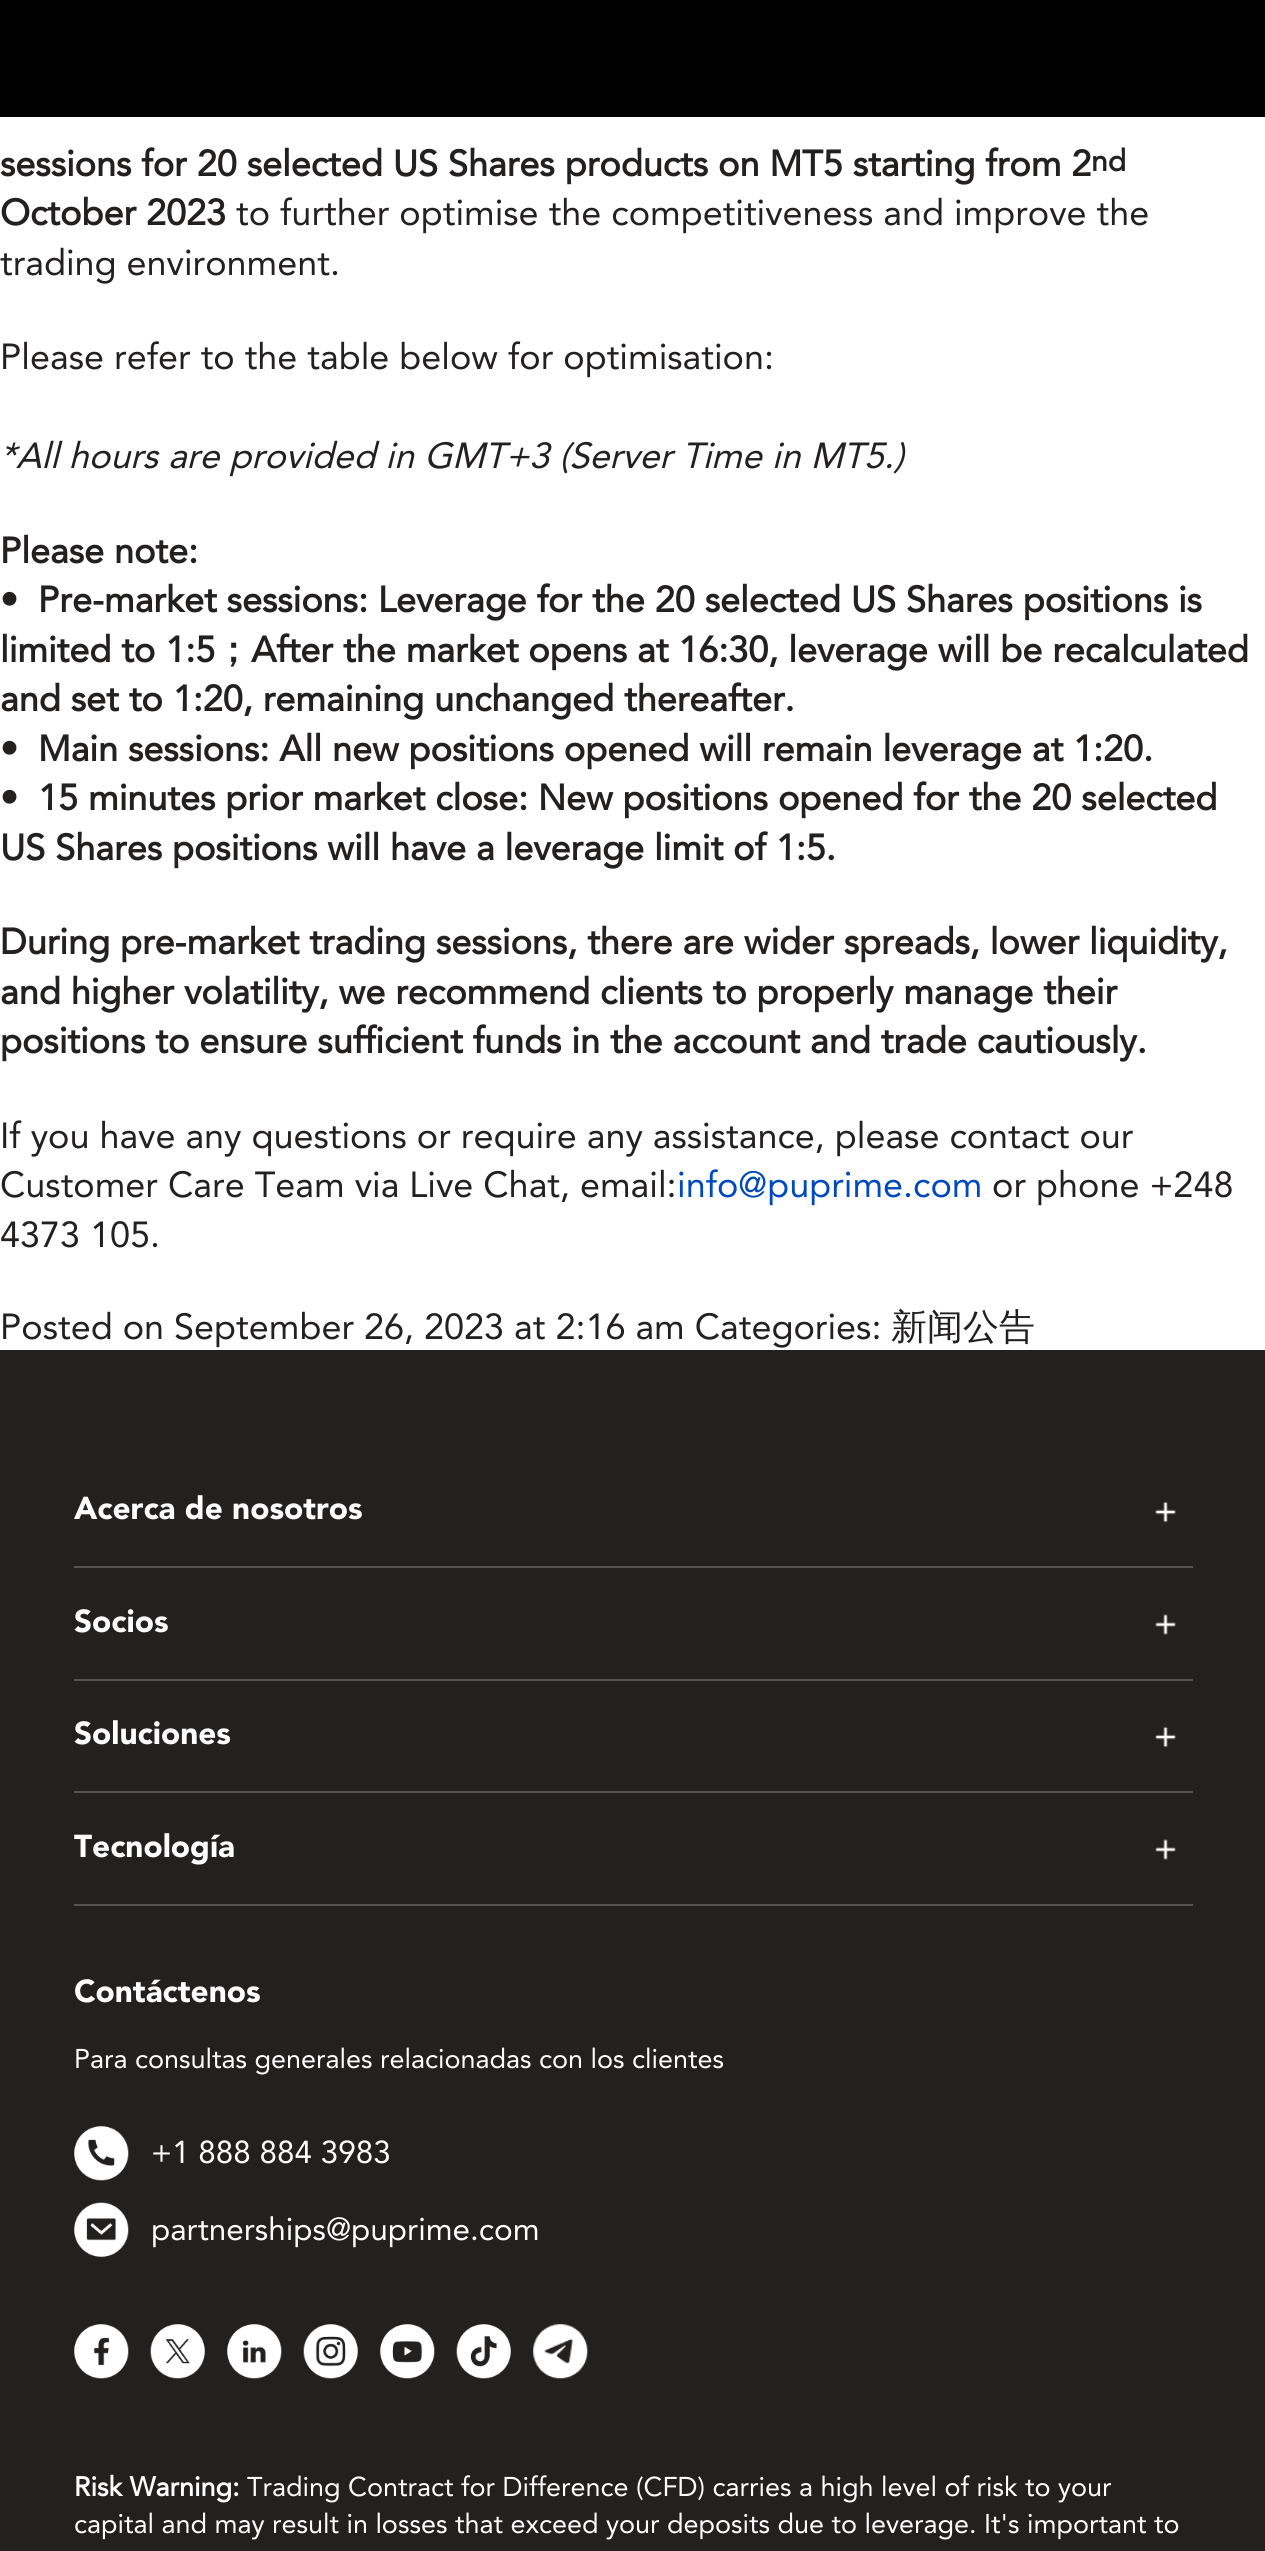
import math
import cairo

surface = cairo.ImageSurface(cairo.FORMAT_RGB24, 1265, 2551)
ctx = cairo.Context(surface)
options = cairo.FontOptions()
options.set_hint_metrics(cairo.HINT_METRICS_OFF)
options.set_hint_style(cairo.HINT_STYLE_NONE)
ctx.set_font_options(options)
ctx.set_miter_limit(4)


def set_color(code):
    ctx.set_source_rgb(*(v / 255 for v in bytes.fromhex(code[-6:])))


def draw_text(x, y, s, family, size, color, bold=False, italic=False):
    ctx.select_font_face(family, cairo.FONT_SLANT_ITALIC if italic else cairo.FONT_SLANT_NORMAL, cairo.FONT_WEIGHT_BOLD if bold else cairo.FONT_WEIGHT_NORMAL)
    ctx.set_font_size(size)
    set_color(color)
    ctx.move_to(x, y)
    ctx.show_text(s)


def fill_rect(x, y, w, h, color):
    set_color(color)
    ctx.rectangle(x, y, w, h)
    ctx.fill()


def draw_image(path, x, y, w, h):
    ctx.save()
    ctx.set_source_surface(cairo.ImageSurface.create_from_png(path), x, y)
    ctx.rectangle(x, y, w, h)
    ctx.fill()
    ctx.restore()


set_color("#ffffff")
ctx.paint()
fill_rect(0, 0, 1265, 117, "#000000")
draw_text(0, 176, "sessions for 20 selected US Shares products on MT5 starting from 2", "Avenir", 36, "#232020", bold=True)
draw_text(1091, 171, "nd", "Avenir", 30, "#232020", bold=True)
draw_text(0, 225, "October 2023", "Avenir", 36, "#232020", bold=True)
draw_text(236, 225, "to further optimise the competitiveness and improve the", "Avenir", 36, "#232020")
draw_text(0, 275, "trading environment.", "Avenir", 36, "#232020")
draw_text(0, 369, "Please refer to the table below for optimisation:", "Avenir", 36, "#232020")
draw_text(0, 468, "*All hours are provided in GMT+3 (Server Time in MT5.)", "Avenir", 36, "#232020", italic=True)
draw_text(0, 563, "Please note:", "Avenir", 36, "#232020", bold=True)
draw_text(0, 612, "•  Pre-market sessions: Leverage for the 20 selected US Shares positions is", "Avenir", 36, "#232020", bold=True)
draw_text(0, 662, "limited to 1:5", "Avenir", 36, "#232020", bold=True)
draw_text(215, 662, "；", "WenQuanYi Zen Hei", 36, "#232020", bold=True)
draw_text(251, 662, "After the market opens at 16:30, leverage will be recalculated", "Avenir", 36, "#232020", bold=True)
draw_text(0, 711, "and set to 1:20, remaining unchanged thereafter.", "Avenir", 36, "#232020", bold=True)
draw_text(0, 761, "•  Main sessions: All new positions opened will remain leverage at 1:20.", "Avenir", 36, "#232020", bold=True)
draw_text(0, 810, "•  15 minutes prior market close: New positions opened for the 20 selected", "Avenir", 36, "#232020", bold=True)
draw_text(0, 860, "US Shares positions will have a leverage limit of 1:5.", "Avenir", 36, "#232020", bold=True)
draw_text(0, 954, "During pre-market trading sessions, there are wider spreads, lower liquidity,", "Avenir", 36, "#232020", bold=True)
draw_text(0, 1004, "and higher volatility, we recommend clients to properly manage their", "Avenir", 36, "#232020", bold=True)
draw_text(0, 1053, "positions to ensure sufficient funds in the account and trade cautiously.", "Avenir", 36, "#232020", bold=True)
draw_text(0, 1148, "If you have any questions or require any assistance, please contact our", "Avenir", 36, "#232020")
draw_text(0, 1197, "Customer Care Team via Live Chat, email:", "Avenir", 36, "#232020")
draw_text(677, 1197, "info@puprime.com", "Avenir", 36, "#004abc")
draw_text(992, 1197, "or phone +248", "Avenir", 36, "#232020")
draw_text(0, 1247, "4373 105.", "Avenir", 36, "#232020")
draw_text(0, 1339, "Posted on September 26, 2023 at 2:16 am Categories:", "Avenir", 36, "#232020")
draw_text(891, 1339, "新闻公告", "WenQuanYi Zen Hei Medium", 36, "#232020")
fill_rect(0, 1350, 1265, 1201, "#232020")
fill_rect(74, 1566, 1119, 2, "#565353")
draw_text(74, 1519, "Acerca de nosotros", "Avenir Black", 31.5, "#ffffff")
draw_image("assets/img1.png", 1155, 1501, 21, 22)
fill_rect(74, 1679, 1119, 2, "#565353")
draw_text(74, 1632, "Socios", "Avenir Black", 31.5, "#ffffff")
draw_image("assets/img2.png", 1155, 1614, 21, 21)
fill_rect(74, 1791, 1119, 2, "#565353")
draw_text(74, 1744, "Soluciones", "Avenir Black", 31.5, "#ffffff")
draw_image("assets/img1.png", 1155, 1726, 21, 22)
fill_rect(74, 1904, 1119, 2, "#565353")
draw_text(74, 1857, "Tecnología", "Avenir Black", 31.5, "#ffffff")
draw_image("assets/img2.png", 1155, 1839, 21, 21)
draw_text(74, 2002, "Contáctenos", "Avenir Black", 31.5, "#ffffff")
draw_text(74, 2068, "Para consultas generales relacionadas con los clientes", "Avenir", 27, "#ffffff")
draw_image("assets/img3.png", 74, 2126, 55, 55)
draw_text(151, 2163, "+1 888 884 3983", "Avenir", 31.5, "#ffffff")
draw_image("assets/img4.png", 74, 2202, 55, 55)
draw_text(151, 2240, "partnerships@puprime.com", "Avenir", 31.5, "#ffffff")
draw_image("assets/img5.png", 74, 2324, 55, 55)
draw_image("assets/img6.png", 150, 2324, 55, 55)
draw_image("assets/img7.png", 227, 2324, 55, 55)
draw_image("assets/img8.png", 303, 2324, 55, 55)
draw_image("assets/img9.png", 380, 2324, 55, 55)
draw_image("assets/img10.png", 456, 2324, 55, 55)
draw_image("assets/img11.png", 533, 2324, 55, 55)
draw_text(74, 2496, "Risk Warning:", "Avenir", 27, "#ffffff", bold=True)
draw_text(247, 2496, "Trading Contract for Difference (CFD) carries a high level of risk to your", "Avenir", 27, "#ffffff")
draw_text(74, 2533, "capital and may result in losses that exceed your deposits due to leverage. It's important to", "Avenir", 27, "#ffffff")
surface.write_to_png("output.png")
